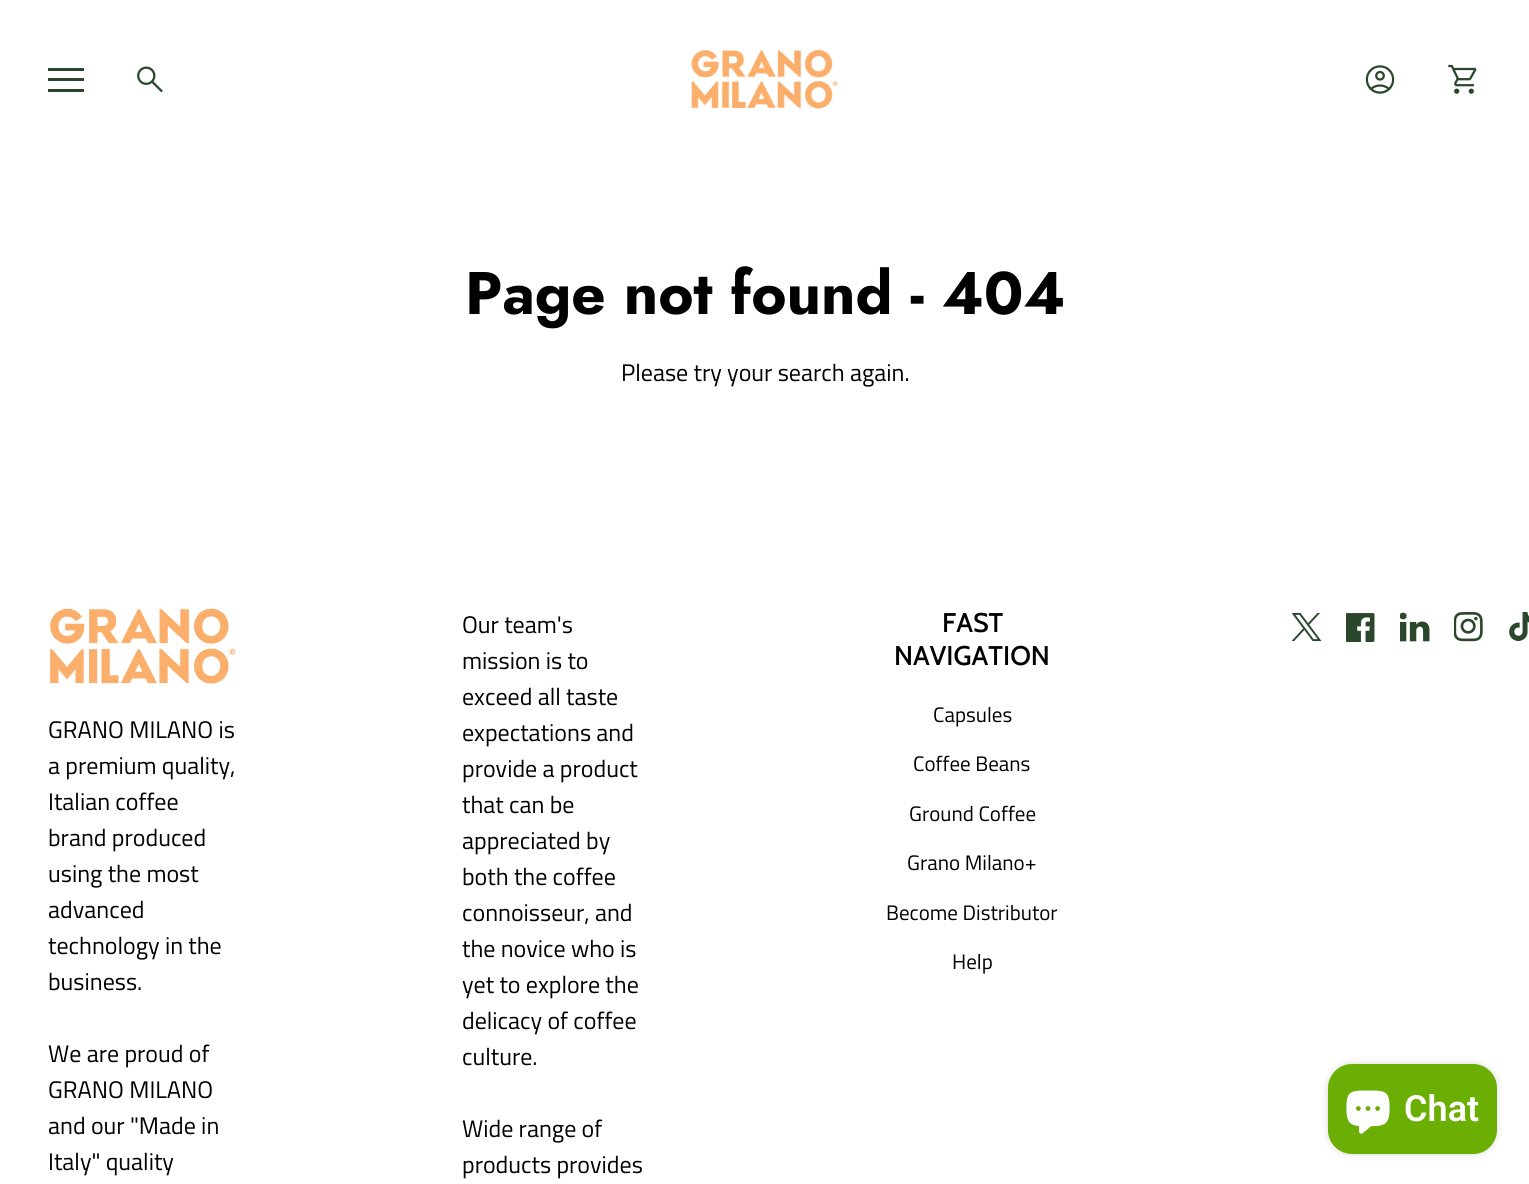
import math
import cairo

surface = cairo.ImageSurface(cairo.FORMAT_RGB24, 1529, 1184)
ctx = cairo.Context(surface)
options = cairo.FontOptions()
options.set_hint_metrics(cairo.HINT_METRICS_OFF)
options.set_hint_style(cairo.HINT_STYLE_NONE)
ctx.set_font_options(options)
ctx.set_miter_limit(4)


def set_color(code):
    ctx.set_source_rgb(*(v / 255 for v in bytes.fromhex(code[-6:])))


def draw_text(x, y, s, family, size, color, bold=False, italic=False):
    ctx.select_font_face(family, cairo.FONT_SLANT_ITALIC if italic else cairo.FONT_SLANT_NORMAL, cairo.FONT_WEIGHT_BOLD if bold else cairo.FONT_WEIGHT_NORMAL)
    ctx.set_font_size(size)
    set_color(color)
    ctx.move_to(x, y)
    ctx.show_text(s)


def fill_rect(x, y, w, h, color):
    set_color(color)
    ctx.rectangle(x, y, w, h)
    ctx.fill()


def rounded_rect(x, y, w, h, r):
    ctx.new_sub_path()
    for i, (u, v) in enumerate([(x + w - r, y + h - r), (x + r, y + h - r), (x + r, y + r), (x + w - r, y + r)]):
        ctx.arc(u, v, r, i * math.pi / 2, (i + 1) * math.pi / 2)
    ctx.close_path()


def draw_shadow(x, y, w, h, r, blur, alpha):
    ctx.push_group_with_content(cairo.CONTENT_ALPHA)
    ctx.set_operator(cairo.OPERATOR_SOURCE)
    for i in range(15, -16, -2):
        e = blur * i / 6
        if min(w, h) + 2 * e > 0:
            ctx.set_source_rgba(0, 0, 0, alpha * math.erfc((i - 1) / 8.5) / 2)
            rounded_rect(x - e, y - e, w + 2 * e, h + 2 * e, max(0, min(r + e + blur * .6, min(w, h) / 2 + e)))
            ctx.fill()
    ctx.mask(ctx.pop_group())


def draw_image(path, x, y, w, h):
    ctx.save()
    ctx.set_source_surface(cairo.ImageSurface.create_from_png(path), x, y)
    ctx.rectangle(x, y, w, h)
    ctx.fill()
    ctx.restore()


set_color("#ffffff")
ctx.paint()
fill_rect(48, 68, 36, 3, "#2a472b")
fill_rect(48, 78, 36, 3, "#2a472b")
fill_rect(48, 89, 36, 3, "#2a472b")
draw_image("assets/img1.png", 137, 66, 26, 27)
draw_image("assets/img2.png", 691, 49, 147, 60)
draw_image("assets/img3.png", 1365, 65, 30, 29)
draw_image("assets/img4.png", 1448, 64, 29, 30)
draw_text(465, 314, "Page not found - 404", "Jost", 60, "#000000", bold=True)
draw_text(621, 381, "Please try your search again.", "Titillium Web", 24, "#000000")
draw_image("assets/img5.png", 50, 608, 186, 76)
draw_text(48, 738, "GRANO MILANO is", "Titillium Web", 24, "#000000")
draw_text(48, 774, "a premium quality,", "Titillium Web", 24, "#000000")
draw_text(48, 810, "Italian coffee", "Titillium Web", 24, "#000000")
draw_text(48, 846, "brand produced", "Titillium Web", 24, "#000000")
draw_text(48, 882, "using the most", "Titillium Web", 24, "#000000")
draw_text(48, 918, "advanced", "Titillium Web", 24, "#000000")
draw_text(48, 954, "technology in the", "Titillium Web", 24, "#000000")
draw_text(48, 990, "business.", "Titillium Web", 24, "#000000")
draw_text(48, 1062, "We are proud of", "Titillium Web", 24, "#000000")
draw_text(48, 1098, "GRANO MILANO", "Titillium Web", 24, "#000000")
draw_text(48, 1134, "and our \"Made in", "Titillium Web", 24, "#000000")
draw_text(48, 1170, "Italy\" quality", "Titillium Web", 24, "#000000")
draw_text(462, 633, "Our team's", "Titillium Web", 24, "#000000")
draw_text(462, 669, "mission is to", "Titillium Web", 24, "#000000")
draw_text(462, 705, "exceed all taste", "Titillium Web", 24, "#000000")
draw_text(462, 741, "expectations and", "Titillium Web", 24, "#000000")
draw_text(462, 777, "provide a product", "Titillium Web", 24, "#000000")
draw_text(462, 813, "that can be", "Titillium Web", 24, "#000000")
draw_text(462, 849, "appreciated by", "Titillium Web", 24, "#000000")
draw_text(462, 885, "both the coffee", "Titillium Web", 24, "#000000")
draw_text(462, 921, "connoisseur, and", "Titillium Web", 24, "#000000")
draw_text(462, 957, "the novice who is", "Titillium Web", 24, "#000000")
draw_text(462, 993, "yet to explore the", "Titillium Web", 24, "#000000")
draw_text(462, 1029, "delicacy of coffee", "Titillium Web", 24, "#000000")
draw_text(462, 1065, "culture.", "Titillium Web", 24, "#000000")
draw_text(462, 1137, "Wide range of", "Titillium Web", 24, "#000000")
draw_text(462, 1173, "products provides", "Titillium Web", 24, "#000000")
draw_text(942, 632, "FAST", "Cabin Medium", 27, "#000000")
draw_text(894, 665, "NAVIGATION", "Cabin Medium", 27, "#000000")
draw_text(933, 722, "Capsules", "Titillium Web", 21, "#000000")
draw_text(913, 771, "Coffee Beans", "Titillium Web", 21, "#000000")
draw_text(909, 821, "Ground Coffee", "Titillium Web", 21, "#000000")
draw_text(907, 870, "Grano Milano+", "Titillium Web", 21, "#000000")
draw_text(886, 920, "Become Distributor", "Titillium Web", 21, "#000000")
draw_text(952, 969, "Help", "Titillium Web", 21, "#000000")
draw_image("assets/img6.png", 1292, 612, 30, 30)
draw_image("assets/img7.png", 1346, 613, 29, 29)
draw_image("assets/img8.png", 1400, 612, 30, 30)
draw_image("assets/img9.png", 1454, 612, 29, 30)
draw_image("assets/img10.png", 1509, 612, 20, 29)
set_color("#000000")
draw_shadow(1328, 1064, 169, 90, 24, 4, 0.15)
set_color("#6caf04")
rounded_rect(1328, 1064, 169, 90, 24)
ctx.fill()
draw_image("assets/img11.png", 1346, 1090, 44, 44)
draw_text(1404, 1121, "Chat", "Roboto SemiBold", 36, "#ffffff")
surface.write_to_png("output.png")
